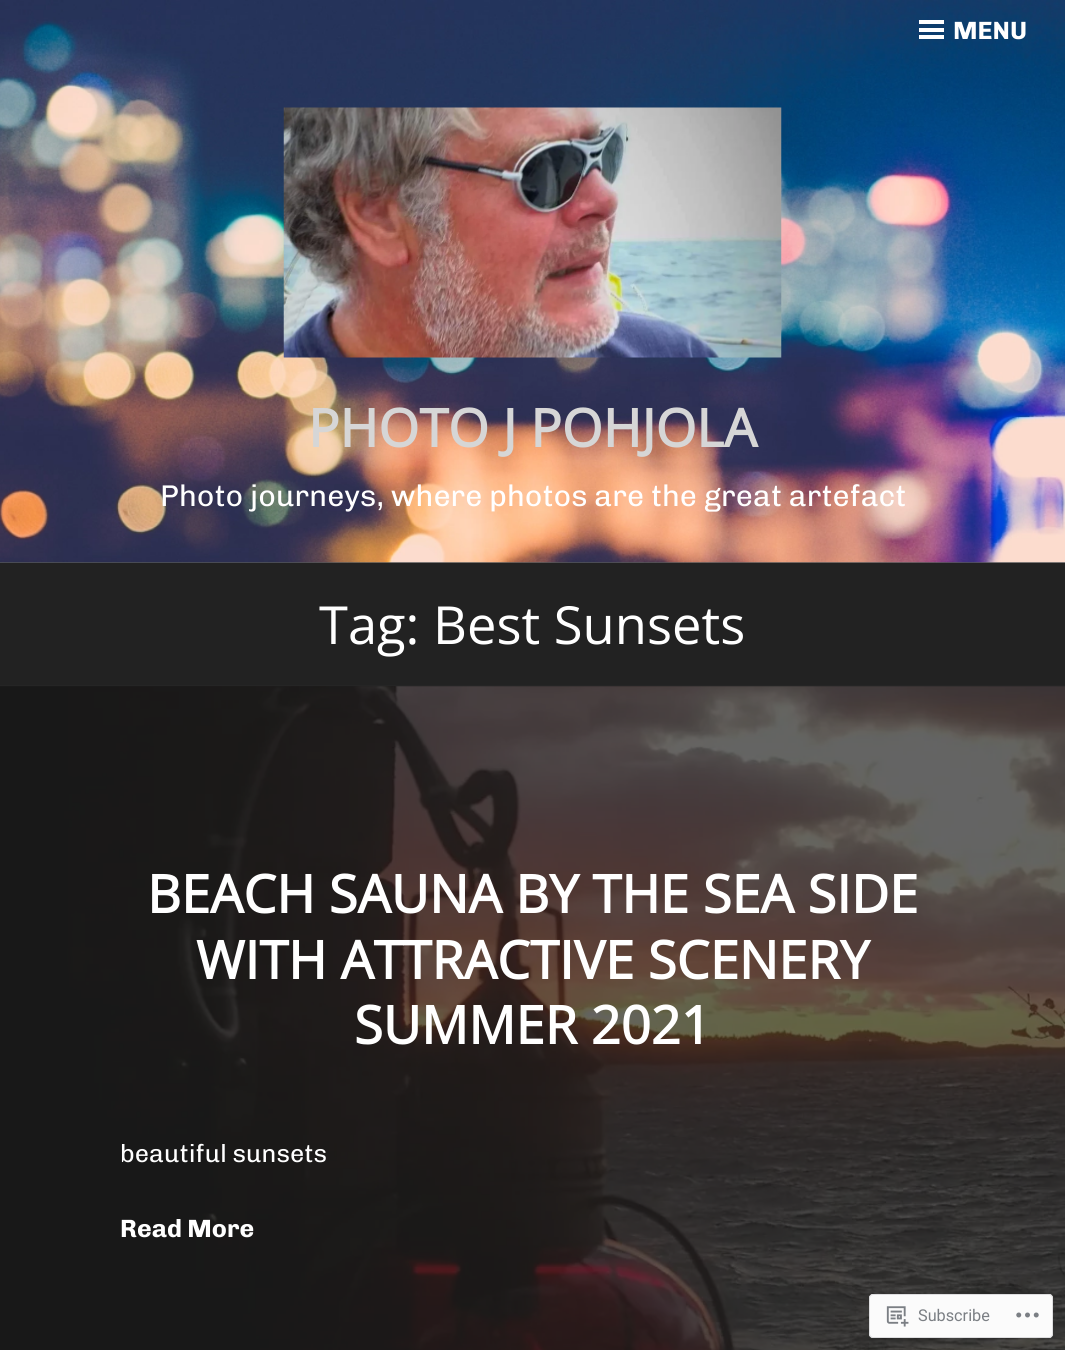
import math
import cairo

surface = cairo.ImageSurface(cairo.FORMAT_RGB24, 1065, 1350)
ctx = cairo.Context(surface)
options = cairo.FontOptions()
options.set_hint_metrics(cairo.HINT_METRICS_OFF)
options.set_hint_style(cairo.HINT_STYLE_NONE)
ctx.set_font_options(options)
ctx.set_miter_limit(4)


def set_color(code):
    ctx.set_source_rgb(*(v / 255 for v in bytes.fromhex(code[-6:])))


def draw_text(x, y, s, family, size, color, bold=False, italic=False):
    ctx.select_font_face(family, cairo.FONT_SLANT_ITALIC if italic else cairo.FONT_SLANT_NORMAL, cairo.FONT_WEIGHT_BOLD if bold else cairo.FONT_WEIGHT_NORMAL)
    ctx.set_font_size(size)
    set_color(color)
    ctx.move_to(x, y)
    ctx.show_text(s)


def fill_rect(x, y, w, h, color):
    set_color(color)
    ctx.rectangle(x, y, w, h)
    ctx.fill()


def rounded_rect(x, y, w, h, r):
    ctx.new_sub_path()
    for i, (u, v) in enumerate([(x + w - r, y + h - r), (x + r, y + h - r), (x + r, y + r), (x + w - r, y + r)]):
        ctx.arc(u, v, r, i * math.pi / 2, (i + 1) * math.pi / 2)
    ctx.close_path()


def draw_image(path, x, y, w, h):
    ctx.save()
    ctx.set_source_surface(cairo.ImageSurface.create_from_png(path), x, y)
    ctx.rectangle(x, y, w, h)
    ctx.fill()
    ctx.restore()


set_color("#535657")
ctx.paint()
draw_image("assets/img1.png", 0, 0, 1065, 563)
fill_rect(919, 28, 25, 4, "#ffffff")
fill_rect(919, 20, 25, 4, "#ffffff")
fill_rect(919, 35, 25, 4, "#ffffff")
draw_text(953, 39, "MENU", "Chivo", 25, "#ffffff", bold=True)
draw_image("assets/img2.png", 283, 107, 499, 251)
draw_text(308, 447, "PHOTO J POHJOLA", "Open Sans", 52.5, "#d6d6d6", bold=True)
draw_text(160, 506, "Photo journeys, where photos are the great artefact", "Chivo", 30, "#ffffff")
fill_rect(0, 563, 1065, 122, "#222222")
fill_rect(0, 685, 1065, 1, "#252525")
draw_text(319, 644, "Tag: Best Sunsets", "Open Sans", 52.5, "#ffffff")
fill_rect(0, 686, 1065, 664, "#222222")
draw_image("assets/img3.png", 0, 686, 1065, 664)
draw_text(147, 913, "BEACH SAUNA BY THE SEA SIDE", "Open Sans", 52.5, "#ffffff", bold=True)
draw_text(196, 979, "WITH ATTRACTIVE SCENERY", "Open Sans", 52.5, "#ffffff", bold=True)
draw_text(354, 1044, "SUMMER 2021", "Open Sans", 52.5, "#ffffff", bold=True)
draw_text(120, 1162, "beautiful sunsets", "Chivo", 25, "#ffffff")
draw_text(120, 1237, "Read More", "Chivo", 25, "#ffffff", bold=True)
ctx.set_source_rgba(1, 1, 1, 0.98)
rounded_rect(869, 1294, 184, 44, 4)
ctx.fill()
rounded_rect(869.5, 1294.5, 183, 43, 3.5)
ctx.set_source_rgba(0.863, 0.863, 0.871, 0.98)
ctx.set_line_width(1)
ctx.stroke()
draw_image("assets/img4.png", 886, 1306, 23, 21)
draw_text(918, 1321, "Subscribe", "Roboto", 16.25, "#7b7f84")
draw_image("assets/img5.png", 1016, 1312, 23, 6)
surface.write_to_png("output.png")
